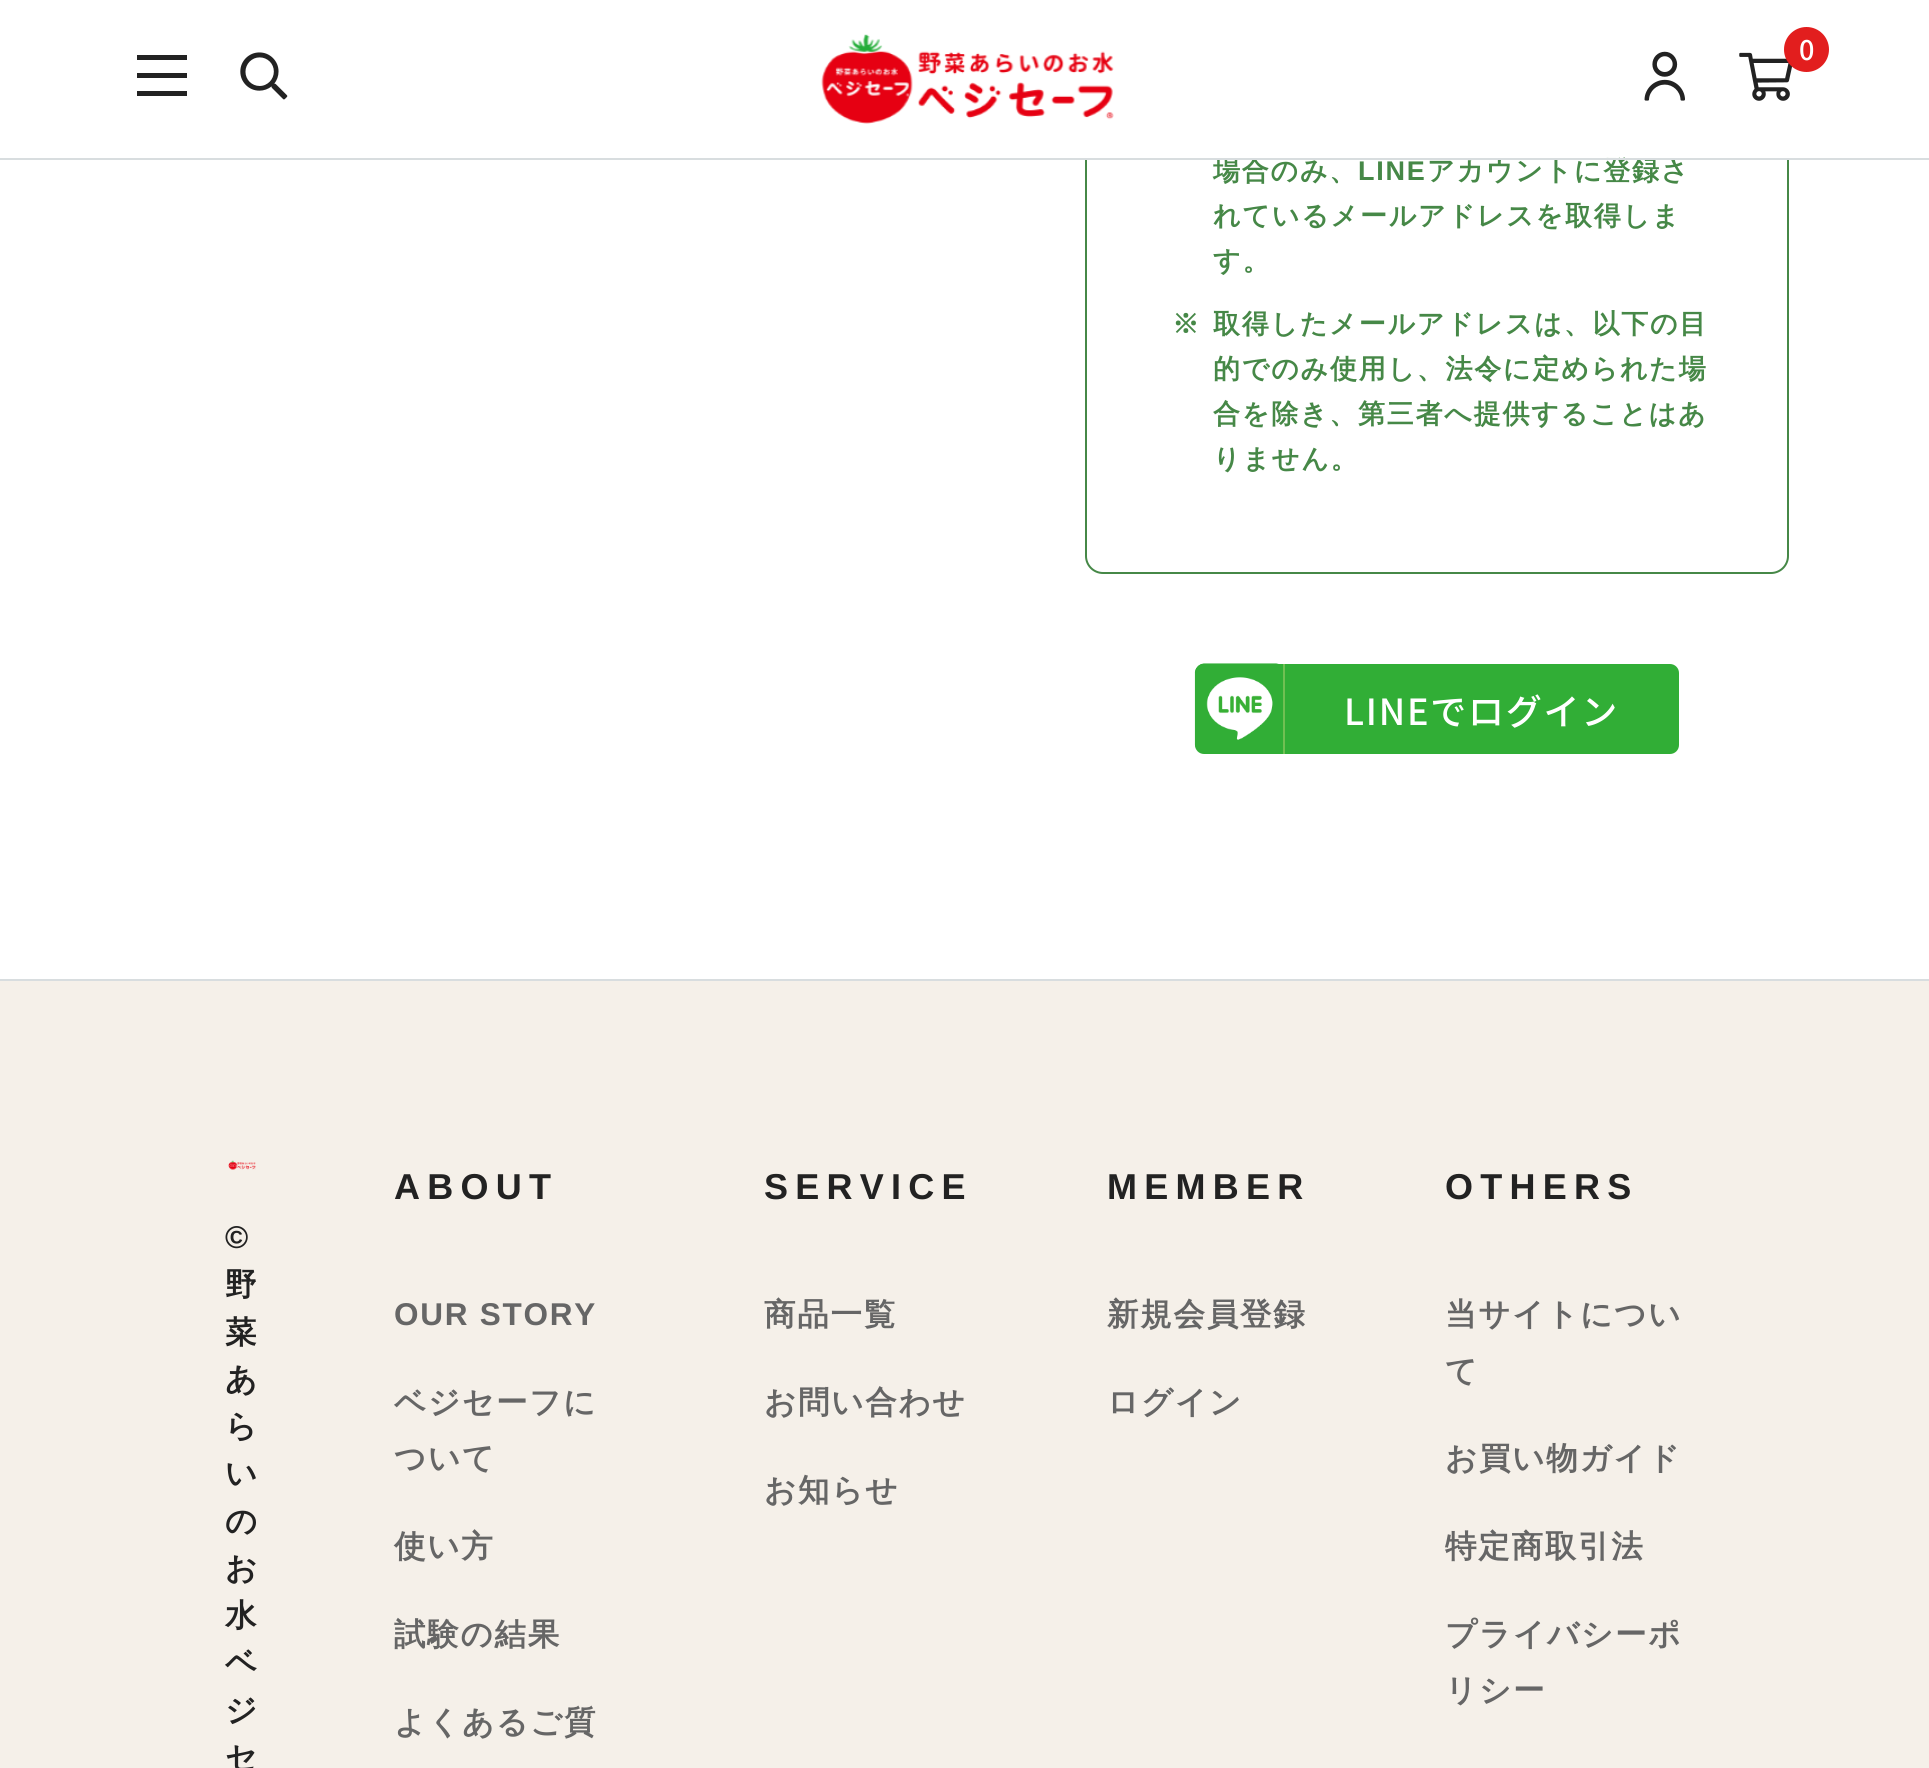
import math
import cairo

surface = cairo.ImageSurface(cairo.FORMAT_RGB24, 1929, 1768)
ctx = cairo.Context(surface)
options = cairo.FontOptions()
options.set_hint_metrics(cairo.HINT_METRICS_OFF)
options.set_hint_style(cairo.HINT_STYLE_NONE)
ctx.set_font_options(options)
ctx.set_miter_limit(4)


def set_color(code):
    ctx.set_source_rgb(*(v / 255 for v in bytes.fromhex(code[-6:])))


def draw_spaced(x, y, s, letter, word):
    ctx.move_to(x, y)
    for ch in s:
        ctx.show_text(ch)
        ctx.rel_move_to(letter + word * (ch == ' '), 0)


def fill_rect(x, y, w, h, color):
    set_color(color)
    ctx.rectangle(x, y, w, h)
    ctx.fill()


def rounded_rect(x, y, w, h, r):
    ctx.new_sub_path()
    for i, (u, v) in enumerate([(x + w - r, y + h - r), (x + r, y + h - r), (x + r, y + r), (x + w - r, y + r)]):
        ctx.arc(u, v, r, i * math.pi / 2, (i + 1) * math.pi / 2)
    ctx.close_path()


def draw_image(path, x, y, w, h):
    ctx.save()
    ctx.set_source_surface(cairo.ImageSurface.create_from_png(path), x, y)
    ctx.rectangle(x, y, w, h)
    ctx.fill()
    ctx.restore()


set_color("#ffffff")
ctx.paint()
rounded_rect(1086, -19, 702, 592, 17)
set_color("#468847")
ctx.stroke()
ctx.select_font_face("WenQuanYi Zen Hei", cairo.FONT_SLANT_NORMAL, cairo.FONT_WEIGHT_BOLD)
ctx.set_font_size(27)
draw_spaced(1213, 180, "場合のみ、", 1.75, 0)
fill_rect(1085, 0, 704, 158, "#ffffff")
set_color("#468847")
draw_spaced(1427, 180, "アカウントに登録さ", 1.75, 0)
fill_rect(0, 158, 1929, 2, "#d8dddf")
set_color("#222222")
ctx.new_path()
ctx.move_to(137, 55)
ctx.line_to(187, 55)
ctx.line_to(187, 60)
ctx.line_to(137, 60)
ctx.close_path()
ctx.move_to(137, 73)
ctx.line_to(187, 73)
ctx.line_to(187, 78)
ctx.line_to(137, 78)
ctx.close_path()
ctx.move_to(137, 91)
ctx.line_to(187, 91)
ctx.line_to(187, 96)
ctx.line_to(137, 96)
ctx.close_path()
ctx.fill()
draw_image("assets/img1.png", 240, 52, 48, 48)
draw_image("assets/img2.png", 821, 34, 293, 90)
draw_image("assets/img3.png", 1644, 51, 41, 50)
draw_image("assets/img4.png", 1739, 52, 54, 49)
set_color("#e21e1e")
ctx.arc(1806.5, 49.5, 22.5, 0, 2 * math.pi)
ctx.fill()
ctx.select_font_face("Noto Sans JP Thin")
set_color("#ffffff")
draw_spaced(1799, 60, "0", 1.75, 0)
ctx.select_font_face("Liberation Sans", cairo.FONT_SLANT_NORMAL, cairo.FONT_WEIGHT_BOLD)
set_color("#468847")
draw_spaced(1358, 180, "LINE", 1.75, 0)
ctx.select_font_face("WenQuanYi Zen Hei", cairo.FONT_SLANT_NORMAL, cairo.FONT_WEIGHT_BOLD)
draw_spaced(1213, 225, "れているメールアドレスを取得しま", 1.75, 0)
draw_spaced(1213, 270, "す。", 1.75, 0)
draw_spaced(1172, 333, "※", 1.75, 0)
draw_spaced(1213, 333, "取得したメールアドレスは、以下の目", 1.75, 0)
draw_spaced(1213, 378, "的でのみ使用し、法令に定められた場", 1.75, 0)
draw_spaced(1213, 423, "合を除き、第三者へ提供することはあ", 1.75, 0)
draw_spaced(1213, 468, "りません。", 1.75, 0)
set_color("#31ae36")
rounded_rect(1195, 664, 484, 90, 9)
ctx.fill()
draw_image("assets/img5.png", 1194, 663, 85, 85)
fill_rect(1283, 664, 2, 90, "#70c053")
ctx.select_font_face("Noto Sans JP Thin")
ctx.set_font_size(36)
set_color("#ffffff")
draw_spaced(1344, 725, "LINEでログイン", 1.75, 0)
fill_rect(0, 981, 1929, 787, "#f5f0e9")
fill_rect(0, 979, 1929, 2, "#d8dddf")
draw_image("assets/img6.png", 228, 1160, 28, 10)
ctx.select_font_face("Liberation Sans", cairo.FONT_SLANT_NORMAL, cairo.FONT_WEIGHT_BOLD)
ctx.set_font_size(31.5)
set_color("#222222")
draw_spaced(225, 1248, "©", 1.75, 0)
ctx.select_font_face("WenQuanYi Zen Hei", cairo.FONT_SLANT_NORMAL, cairo.FONT_WEIGHT_BOLD)
draw_spaced(225, 1295, "野", 1.75, 0)
draw_spaced(225, 1343, "菜", 1.75, 0)
draw_spaced(225, 1390, "あ", 1.75, 0)
draw_spaced(225, 1437, "ら", 1.75, 0)
draw_spaced(225, 1484, "い", 1.75, 0)
draw_spaced(225, 1532, "の", 1.75, 0)
draw_spaced(225, 1579, "お", 1.75, 0)
draw_spaced(225, 1626, "水", 1.75, 0)
draw_spaced(225, 1673, "ベ", 1.75, 0)
draw_spaced(225, 1721, "ジ", 1.75, 0)
draw_spaced(225, 1768, "セ", 1.75, 0)
ctx.select_font_face("Liberation Sans", cairo.FONT_SLANT_NORMAL, cairo.FONT_WEIGHT_BOLD)
ctx.set_font_size(36)
draw_spaced(394, 1199, "ABOUT", 7.25, 0)
ctx.set_font_size(31.5)
set_color("#666666")
draw_spaced(394, 1325, "OUR STORY", 1.75, 0)
ctx.select_font_face("WenQuanYi Zen Hei", cairo.FONT_SLANT_NORMAL, cairo.FONT_WEIGHT_BOLD)
draw_spaced(394, 1413, "ベジセーフに", 1.75, 0)
draw_spaced(394, 1469, "ついて", 1.75, 0)
draw_spaced(394, 1557, "使い方", 1.75, 0)
draw_spaced(394, 1645, "試験の結果", 1.75, 0)
draw_spaced(394, 1733, "よくあるご質", 1.75, 0)
ctx.select_font_face("Liberation Sans", cairo.FONT_SLANT_NORMAL, cairo.FONT_WEIGHT_BOLD)
ctx.set_font_size(36)
set_color("#222222")
draw_spaced(764, 1199, "SERVICE", 7.25, 0)
ctx.select_font_face("WenQuanYi Zen Hei", cairo.FONT_SLANT_NORMAL, cairo.FONT_WEIGHT_BOLD)
ctx.set_font_size(31.5)
set_color("#666666")
draw_spaced(764, 1325, "商品一覧", 1.75, 0)
draw_spaced(764, 1413, "お問い合わせ", 1.75, 0)
draw_spaced(764, 1501, "お知らせ", 1.75, 0)
ctx.select_font_face("Liberation Sans", cairo.FONT_SLANT_NORMAL, cairo.FONT_WEIGHT_BOLD)
ctx.set_font_size(36)
set_color("#222222")
draw_spaced(1107, 1199, "MEMBER", 7.25, 0)
ctx.select_font_face("WenQuanYi Zen Hei", cairo.FONT_SLANT_NORMAL, cairo.FONT_WEIGHT_BOLD)
ctx.set_font_size(31.5)
set_color("#666666")
draw_spaced(1107, 1325, "新規会員登録", 1.75, 0)
draw_spaced(1107, 1413, "ログイン", 1.75, 0)
ctx.select_font_face("Liberation Sans", cairo.FONT_SLANT_NORMAL, cairo.FONT_WEIGHT_BOLD)
ctx.set_font_size(36)
set_color("#222222")
draw_spaced(1445, 1199, "OTHERS", 7.25, 0)
ctx.select_font_face("WenQuanYi Zen Hei", cairo.FONT_SLANT_NORMAL, cairo.FONT_WEIGHT_BOLD)
ctx.set_font_size(31.5)
set_color("#666666")
draw_spaced(1445, 1325, "当サイトについ", 1.75, 0)
draw_spaced(1445, 1382, "て", 1.75, 0)
draw_spaced(1445, 1469, "お買い物ガイド", 1.75, 0)
draw_spaced(1445, 1557, "特定商取引法", 1.75, 0)
draw_spaced(1445, 1645, "プライバシーポ", 1.75, 0)
draw_spaced(1445, 1701, "リシー", 1.75, 0)
surface.write_to_png("output.png")
